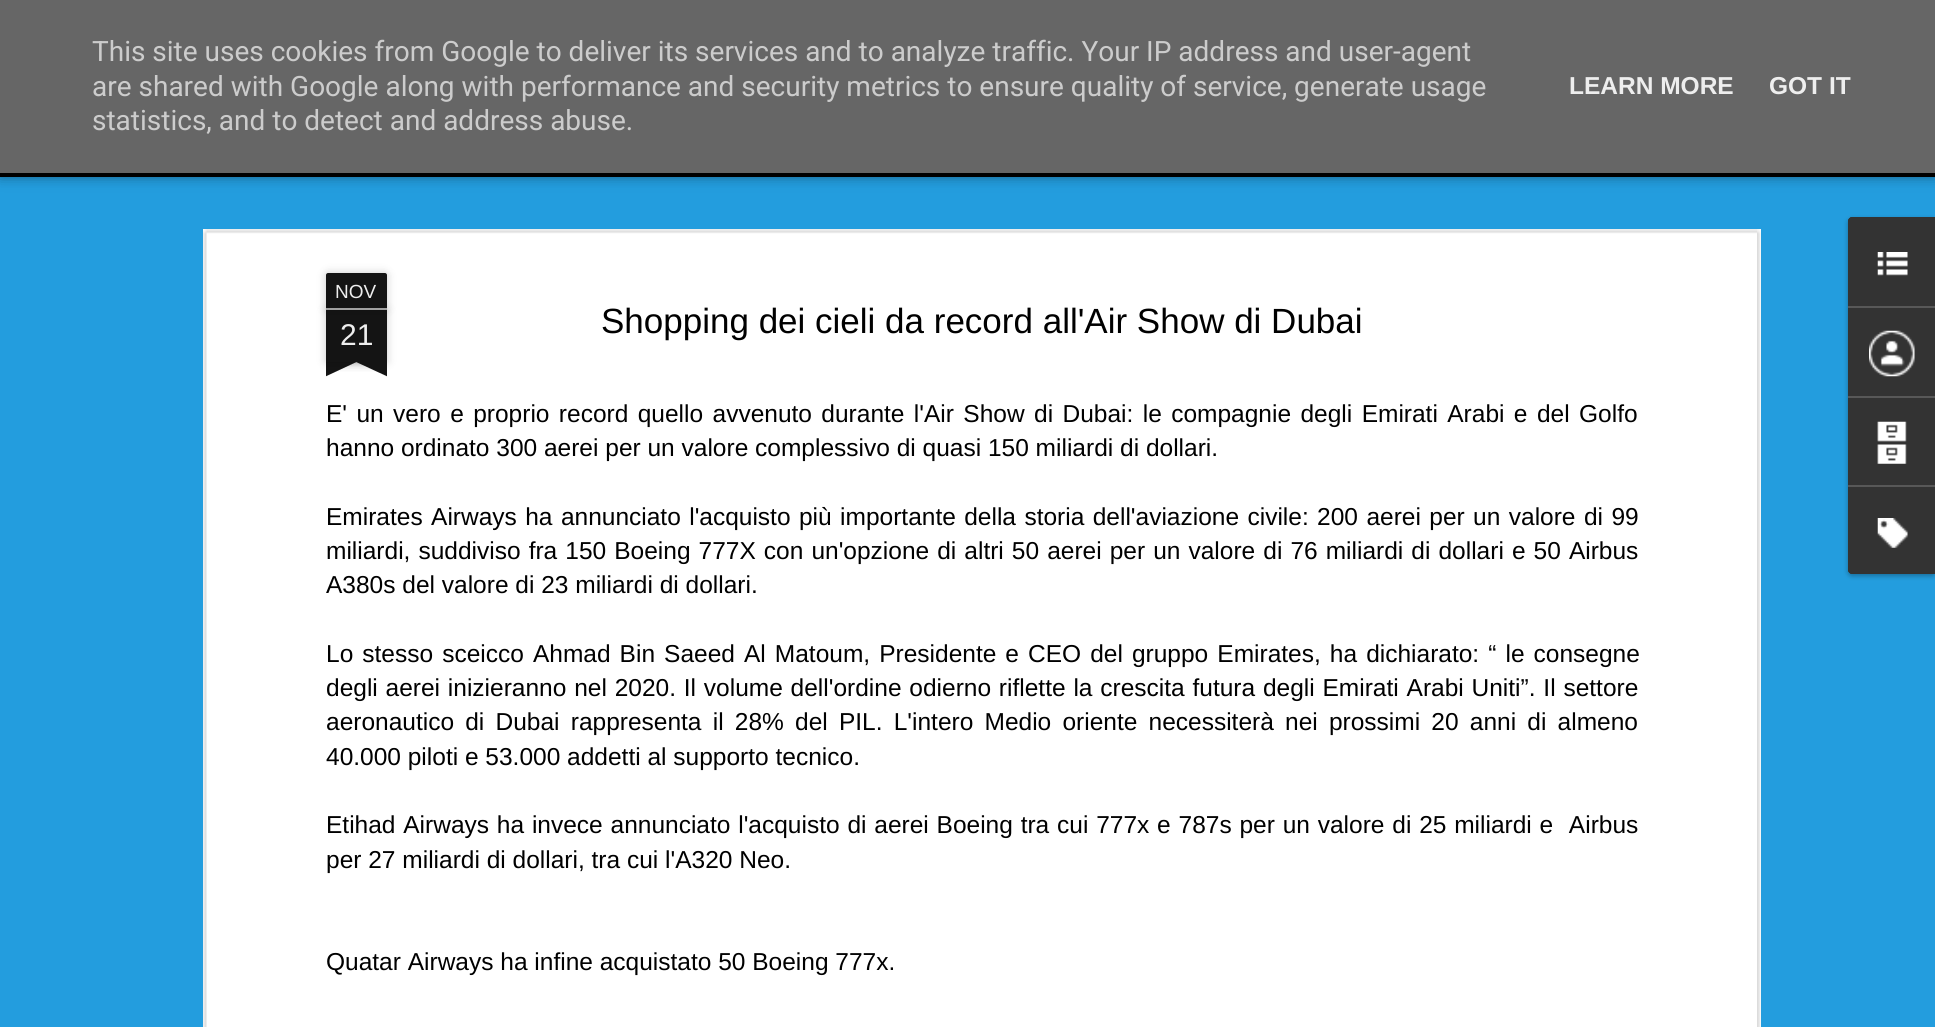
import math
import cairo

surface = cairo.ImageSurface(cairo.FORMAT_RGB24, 1935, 1027)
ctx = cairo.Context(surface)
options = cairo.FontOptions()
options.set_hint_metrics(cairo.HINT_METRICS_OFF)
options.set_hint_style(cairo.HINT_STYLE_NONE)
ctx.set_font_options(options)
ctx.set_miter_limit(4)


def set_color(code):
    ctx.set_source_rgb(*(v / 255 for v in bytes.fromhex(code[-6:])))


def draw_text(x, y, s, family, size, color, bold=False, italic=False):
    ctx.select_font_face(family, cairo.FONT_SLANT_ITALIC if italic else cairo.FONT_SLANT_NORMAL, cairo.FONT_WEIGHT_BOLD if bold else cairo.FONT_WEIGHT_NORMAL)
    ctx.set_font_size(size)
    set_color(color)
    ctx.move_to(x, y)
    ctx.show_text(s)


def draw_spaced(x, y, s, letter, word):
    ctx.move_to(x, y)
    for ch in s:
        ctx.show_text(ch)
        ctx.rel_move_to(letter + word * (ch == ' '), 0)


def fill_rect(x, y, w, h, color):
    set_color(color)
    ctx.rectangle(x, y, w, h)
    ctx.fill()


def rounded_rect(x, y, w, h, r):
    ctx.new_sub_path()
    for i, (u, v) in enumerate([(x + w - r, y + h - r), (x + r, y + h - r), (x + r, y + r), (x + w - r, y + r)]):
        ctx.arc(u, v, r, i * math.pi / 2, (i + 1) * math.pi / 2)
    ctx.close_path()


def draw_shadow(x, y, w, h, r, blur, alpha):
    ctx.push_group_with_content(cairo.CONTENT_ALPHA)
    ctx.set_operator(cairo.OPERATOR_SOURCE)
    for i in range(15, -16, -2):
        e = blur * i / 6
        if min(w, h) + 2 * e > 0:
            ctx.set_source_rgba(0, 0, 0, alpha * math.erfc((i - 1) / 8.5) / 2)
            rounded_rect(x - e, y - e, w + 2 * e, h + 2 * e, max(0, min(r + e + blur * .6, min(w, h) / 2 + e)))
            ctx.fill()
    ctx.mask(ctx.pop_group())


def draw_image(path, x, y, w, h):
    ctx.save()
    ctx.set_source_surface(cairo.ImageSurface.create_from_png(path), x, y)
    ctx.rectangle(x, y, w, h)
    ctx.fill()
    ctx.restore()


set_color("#000000")
ctx.paint()
fill_rect(0, 177, 1935, 850, "#239dde")
set_color("#000000")
draw_shadow(0, 114, 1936, 61, 0, 7, 0.5)
fill_rect(0, 0, 1935, 173, "#666666")
draw_text(92, 61, "This site uses cookies from Google to deliver its services and to analyze traffic. Your IP address and user-agent", "Roboto", 28, "#cccccc")
draw_text(92, 96, "are shared with Google along with performance and security metrics to ensure quality of service, generate usage", "Roboto", 28, "#cccccc")
draw_text(92, 130, "statistics, and to detect and address abuse.", "Roboto", 28, "#cccccc")
draw_text(1569, 94, "LEARN MORE", "Liberation Sans", 24.5, "#eeeeee", bold=True)
draw_text(1769, 94, "GOT IT", "Liberation Sans", 24.5, "#eeeeee", bold=True)
fill_rect(203, 229, 1558, 798, "#ffffff")
draw_image("assets/img1.png", 203, 229, 1558, 798)
set_color("#000000")
draw_shadow(326, 310, 61, 52, 0, 4.5, 0.2)
fill_rect(326, 310, 61, 52, "#141414")
set_color("#000000")
draw_shadow(326, 273, 61, 37, 2, 4.5, 0.2)
set_color("#141414")
ctx.new_path()
ctx.move_to(328, 273)
ctx.line_to(385, 273)
ctx.curve_to(386, 273, 387, 274, 387, 275)
ctx.line_to(387, 310)
ctx.line_to(326, 310)
ctx.line_to(326, 275)
ctx.curve_to(326, 274, 327, 273, 328, 273)
ctx.close_path()
ctx.fill()
fill_rect(326, 308, 61, 2, "#a1a1a1")
draw_text(335, 298, "NOV", "Liberation Sans", 19, "#eeeeee")
draw_text(340, 345, "21", "Liberation Sans", 30, "#eeeeee")
ctx.save()
ctx.rectangle(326, 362, 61, 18)
ctx.clip()
set_color("#000000")
draw_shadow(310, 345, 87, 17, 0, 4.5, 0.2)
ctx.restore()
ctx.save()
ctx.rectangle(326, 362, 61, 18)
ctx.clip()
set_color("#141414")
ctx.new_path()
ctx.move_to(310, 364)
ctx.line_to(389, 327)
ctx.line_to(397, 343)
ctx.line_to(318, 380)
ctx.close_path()
ctx.fill()
ctx.restore()
ctx.save()
ctx.rectangle(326, 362, 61, 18)
ctx.clip()
set_color("#000000")
draw_shadow(315, 345, 88, 17, 0, 4.5, 0.2)
ctx.restore()
ctx.save()
ctx.rectangle(326, 362, 61, 18)
ctx.clip()
set_color("#141414")
ctx.new_path()
ctx.move_to(323, 327)
ctx.line_to(402, 364)
ctx.line_to(395, 380)
ctx.line_to(315, 343)
ctx.close_path()
ctx.fill()
ctx.restore()
draw_text(601, 333, "Shopping dei cieli da record all'Air Show di Dubai", "Liberation Sans", 35, "#000000")
ctx.set_font_size(24.5)
draw_spaced(326, 422, "E' un vero e proprio record quello avvenuto durante l'Air Show di Dubai: le compagnie degli Emirati Arabi e del Golfo", 0, 2.6)
draw_text(326, 456, "hanno ordinato 300 aerei per un valore complessivo di quasi 150 miliardi di dollari.", "Liberation Sans", 24.5, "#000000")
draw_spaced(326, 525, "Emirates Airways ha annunciato l'acquisto più importante della storia dell'aviazione civile: 200 aerei per un valore di 99", 0, 1.6)
draw_spaced(326, 559, "miliardi, suddiviso fra 150 Boeing 777X con un'opzione di altri 50 aerei per un valore di 76 miliardi di dollari e 50 Airbus", 0, 1.25)
draw_text(326, 593, "A380s del valore di 23 miliardi di dollari.", "Liberation Sans", 24.5, "#000000")
draw_spaced(326, 662, "Lo stesso sceicco Ahmad Bin Saeed Al Matoum, Presidente e CEO del gruppo Emirates, ha dichiarato: “ le consegne", 0, 2.25)
draw_spaced(326, 696, "degli aerei inizieranno nel 2020. Il volume dell'ordine odierno riflette la crescita futura degli Emirati Arabi Uniti”. Il settore", 0, 1)
draw_spaced(326, 730, "aeronautico di Dubai rappresenta il 28% del PIL. L'intero Medio oriente necessiterà nei prossimi 20 anni di almeno", 0, 4.4)
draw_text(326, 765, "40.000 piloti e 53.000 addetti al supporto tecnico.", "Liberation Sans", 24.5, "#000000")
draw_spaced(326, 833, "Etihad Airways ha invece annunciato l'acquisto di aerei Boeing tra cui 777x e 787s per un valore di 25 miliardi e  Airbus", 0, 1)
draw_text(326, 868, "per 27 miliardi di dollari, tra cui l'A320 Neo.", "Liberation Sans", 24.5, "#000000")
draw_text(326, 970, "Quatar Airways ha infine acquistato 50 Boeing 777x.", "Liberation Sans", 24.5, "#000000")
set_color("#000000")
draw_shadow(1848, 219, 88, 357, 4, 2.5, 0.3)
set_color("#333333")
ctx.new_path()
ctx.move_to(1852, 217)
ctx.line_to(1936, 217)
ctx.line_to(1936, 574)
ctx.line_to(1852, 574)
ctx.curve_to(1850, 574, 1848, 572, 1848, 570)
ctx.line_to(1848, 221)
ctx.curve_to(1848, 219, 1850, 217, 1852, 217)
ctx.close_path()
ctx.fill()
ctx.new_path()
ctx.move_to(1852, 217)
ctx.line_to(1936, 217)
ctx.line_to(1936, 306)
ctx.line_to(1848, 306)
ctx.line_to(1848, 221)
ctx.curve_to(1848, 219, 1850, 217, 1852, 217)
ctx.close_path()
ctx.fill()
draw_image("assets/img2.png", 1877, 252, 31, 24)
fill_rect(1848, 306, 87, 2, "#585858")
draw_image("assets/img3.png", 1869, 330, 46, 47)
fill_rect(1848, 396, 87, 2, "#585858")
draw_image("assets/img4.png", 1877, 421, 30, 43)
set_color("#333333")
ctx.new_path()
ctx.move_to(1848, 485)
ctx.line_to(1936, 485)
ctx.line_to(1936, 574)
ctx.line_to(1852, 574)
ctx.curve_to(1850, 574, 1848, 572, 1848, 570)
ctx.close_path()
ctx.fill()
fill_rect(1848, 485, 87, 2, "#585858")
draw_image("assets/img5.png", 1877, 518, 31, 30)
surface.write_to_png("output.png")
